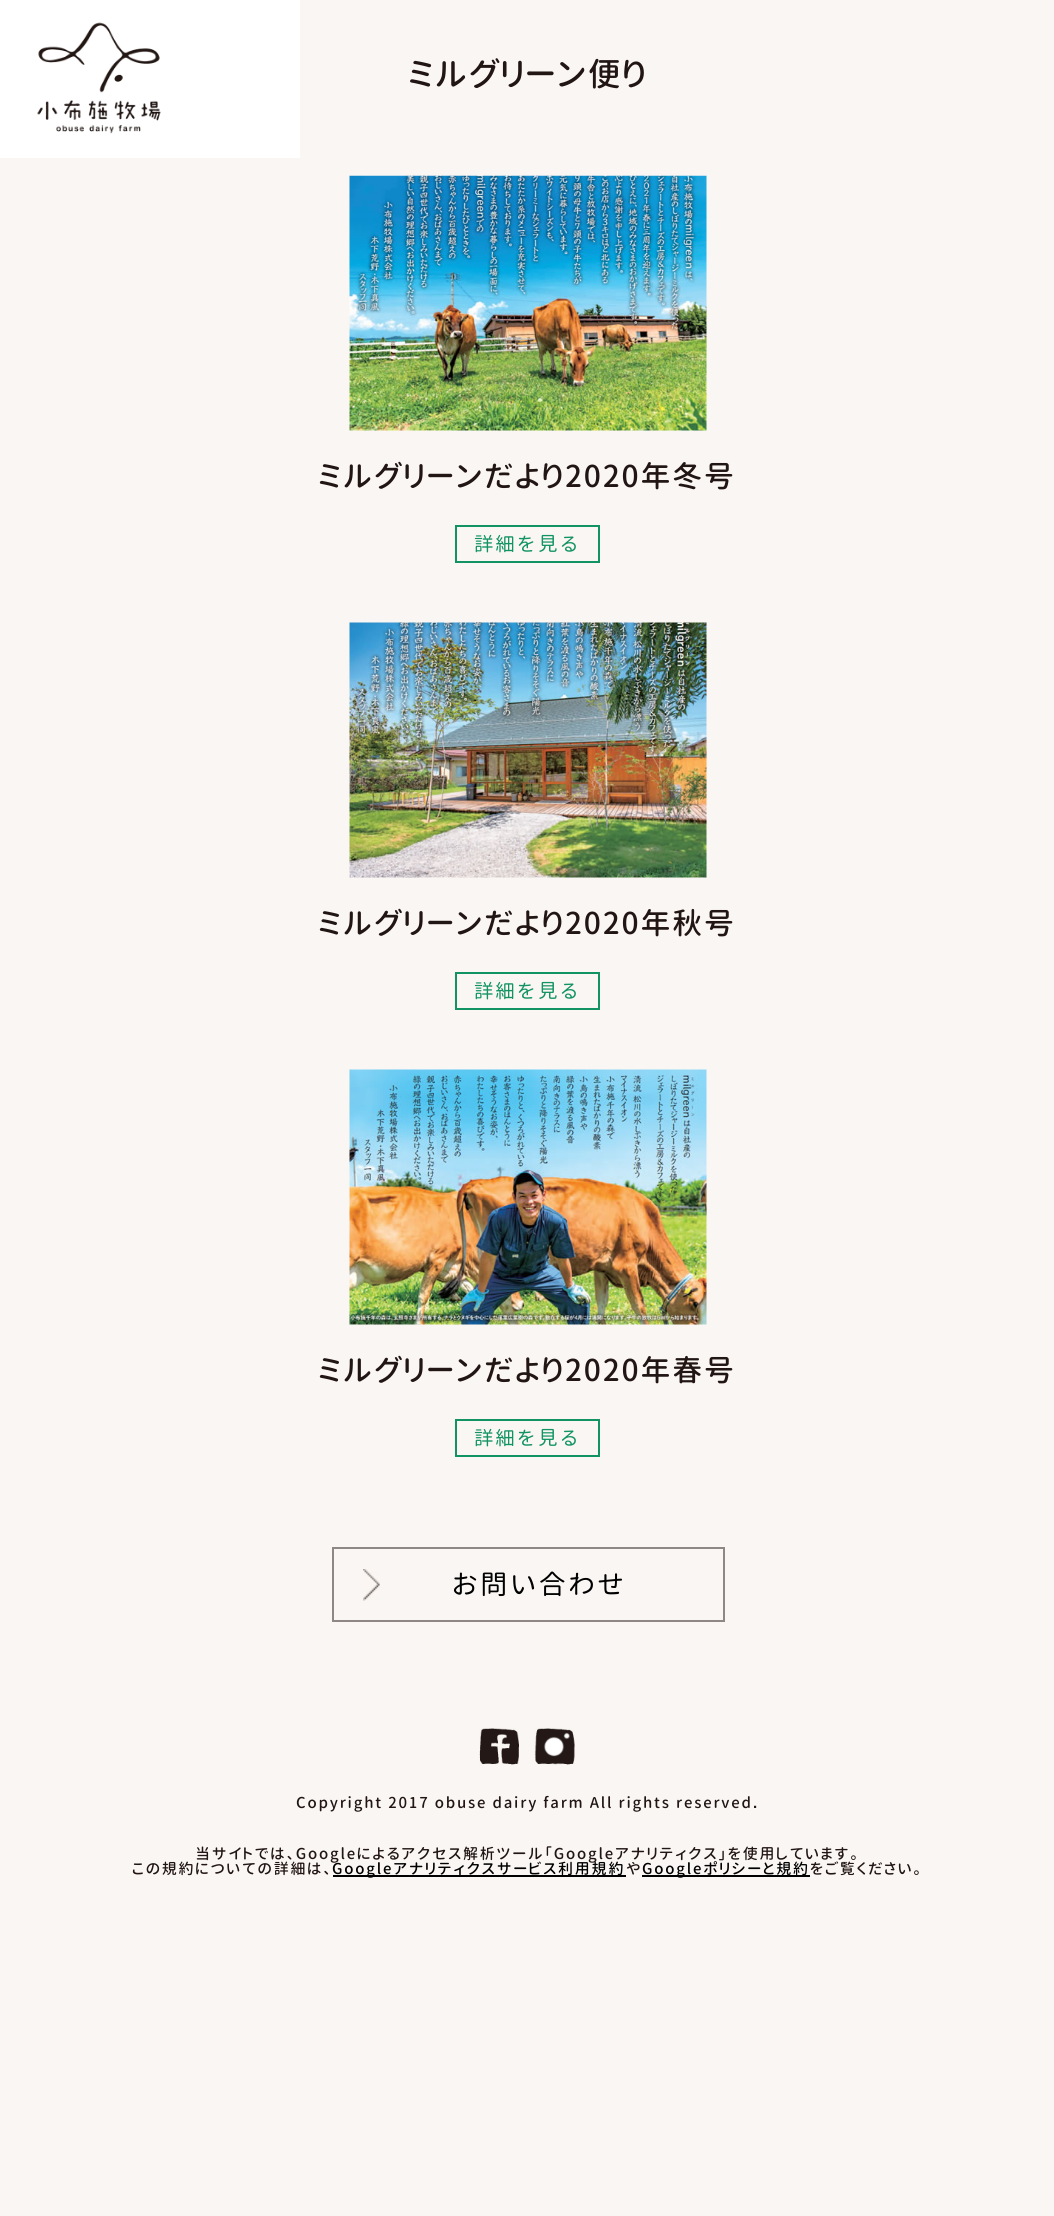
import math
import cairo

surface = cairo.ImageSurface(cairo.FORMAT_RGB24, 1054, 2216)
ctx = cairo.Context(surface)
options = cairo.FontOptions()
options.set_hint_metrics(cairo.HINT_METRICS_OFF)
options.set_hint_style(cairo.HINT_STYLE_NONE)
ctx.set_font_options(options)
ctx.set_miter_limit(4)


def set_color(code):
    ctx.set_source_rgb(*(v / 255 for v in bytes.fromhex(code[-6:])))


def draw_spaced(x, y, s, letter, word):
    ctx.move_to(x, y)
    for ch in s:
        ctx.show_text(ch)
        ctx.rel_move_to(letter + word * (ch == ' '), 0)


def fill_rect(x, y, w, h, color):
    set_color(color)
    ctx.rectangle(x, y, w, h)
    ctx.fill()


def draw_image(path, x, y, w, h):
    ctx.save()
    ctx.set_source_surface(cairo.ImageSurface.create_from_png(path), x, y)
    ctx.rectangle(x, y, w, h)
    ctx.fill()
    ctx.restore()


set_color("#faf6f3")
ctx.paint()
fill_rect(0, 0, 300, 158, "#ffffff")
draw_image("assets/img1.png", 37, 22, 124, 112)
ctx.select_font_face("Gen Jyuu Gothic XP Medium")
ctx.set_font_size(33)
set_color("#211614")
draw_spaced(408, 86, "ミルグリーン便り", 1.5, 0)
draw_image("assets/img2.png", 349, 175, 358, 256)
ctx.set_font_size(30)
draw_spaced(318, 487, "ミルグリーンだより2020年冬号", 1.8, 0)
ctx.rectangle(456, 526, 143, 36)
set_color("#119363")
ctx.stroke()
ctx.select_font_face("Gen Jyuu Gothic")
ctx.set_font_size(19.5)
draw_spaced(474, 551, "詳細を見る", 1.8, 0)
draw_image("assets/img3.png", 349, 622, 358, 256)
ctx.select_font_face("Gen Jyuu Gothic XP Medium")
ctx.set_font_size(30)
set_color("#211614")
draw_spaced(318, 934, "ミルグリーンだより2020年秋号", 1.8, 0)
ctx.rectangle(456, 973, 143, 36)
set_color("#119363")
ctx.stroke()
ctx.select_font_face("Gen Jyuu Gothic")
ctx.set_font_size(19.5)
draw_spaced(474, 998, "詳細を見る", 1.8, 0)
draw_image("assets/img4.png", 349, 1069, 358, 256)
ctx.select_font_face("Gen Jyuu Gothic XP Medium")
ctx.set_font_size(30)
set_color("#211614")
draw_spaced(318, 1381, "ミルグリーンだより2020年春号", 1.8, 0)
ctx.rectangle(456, 1420, 143, 36)
set_color("#119363")
ctx.stroke()
ctx.select_font_face("Gen Jyuu Gothic")
ctx.set_font_size(19.5)
draw_spaced(474, 1445, "詳細を見る", 1.8, 0)
draw_image("assets/img5.png", 363, 1569, 17, 32)
ctx.rectangle(333, 1548, 391, 73)
set_color("#8f8785")
ctx.stroke()
ctx.set_font_size(27)
set_color("#000000")
draw_spaced(451, 1594, "お問い合わせ", 2.25, 0)
draw_image("assets/img6.png", 479, 1728, 40, 37)
draw_image("assets/img7.png", 534, 1728, 41, 37)
ctx.select_font_face("Gen Jyuu Gothic XP Medium")
ctx.set_font_size(15)
set_color("#211614")
draw_spaced(296, 1808, "Copyright 2017 obuse dairy farm All rights reserved", 1.8, 0)
ctx.select_font_face("Liberation Sans", cairo.FONT_SLANT_NORMAL, cairo.FONT_WEIGHT_BOLD)
draw_spaced(753, 1808, ".", 1.8, 0)
ctx.select_font_face("Gen Jyuu Gothic XP Medium")
draw_spaced(195, 1859, "当サイトでは、Googleによるアクセス解析ツール「Googleアナリティクス」を使用しています。", 1.8, 0)
draw_spaced(132, 1874, "この規約についての詳細は、", 1.8, 0)
fill_rect(333, 1875, 293, 2, "#000000")
draw_spaced(332, 1874, "Googleアナリティクスサービス利用規約", 1.8, 0)
set_color("#211614")
draw_spaced(626, 1874, "や", 1.8, 0)
fill_rect(642, 1875, 168, 2, "#000000")
draw_spaced(642, 1874, "Googleポリシーと規約", 1.8, 0)
set_color("#211614")
draw_spaced(810, 1874, "をご覧ください。", 1.8, 0)
surface.write_to_png("output.png")
